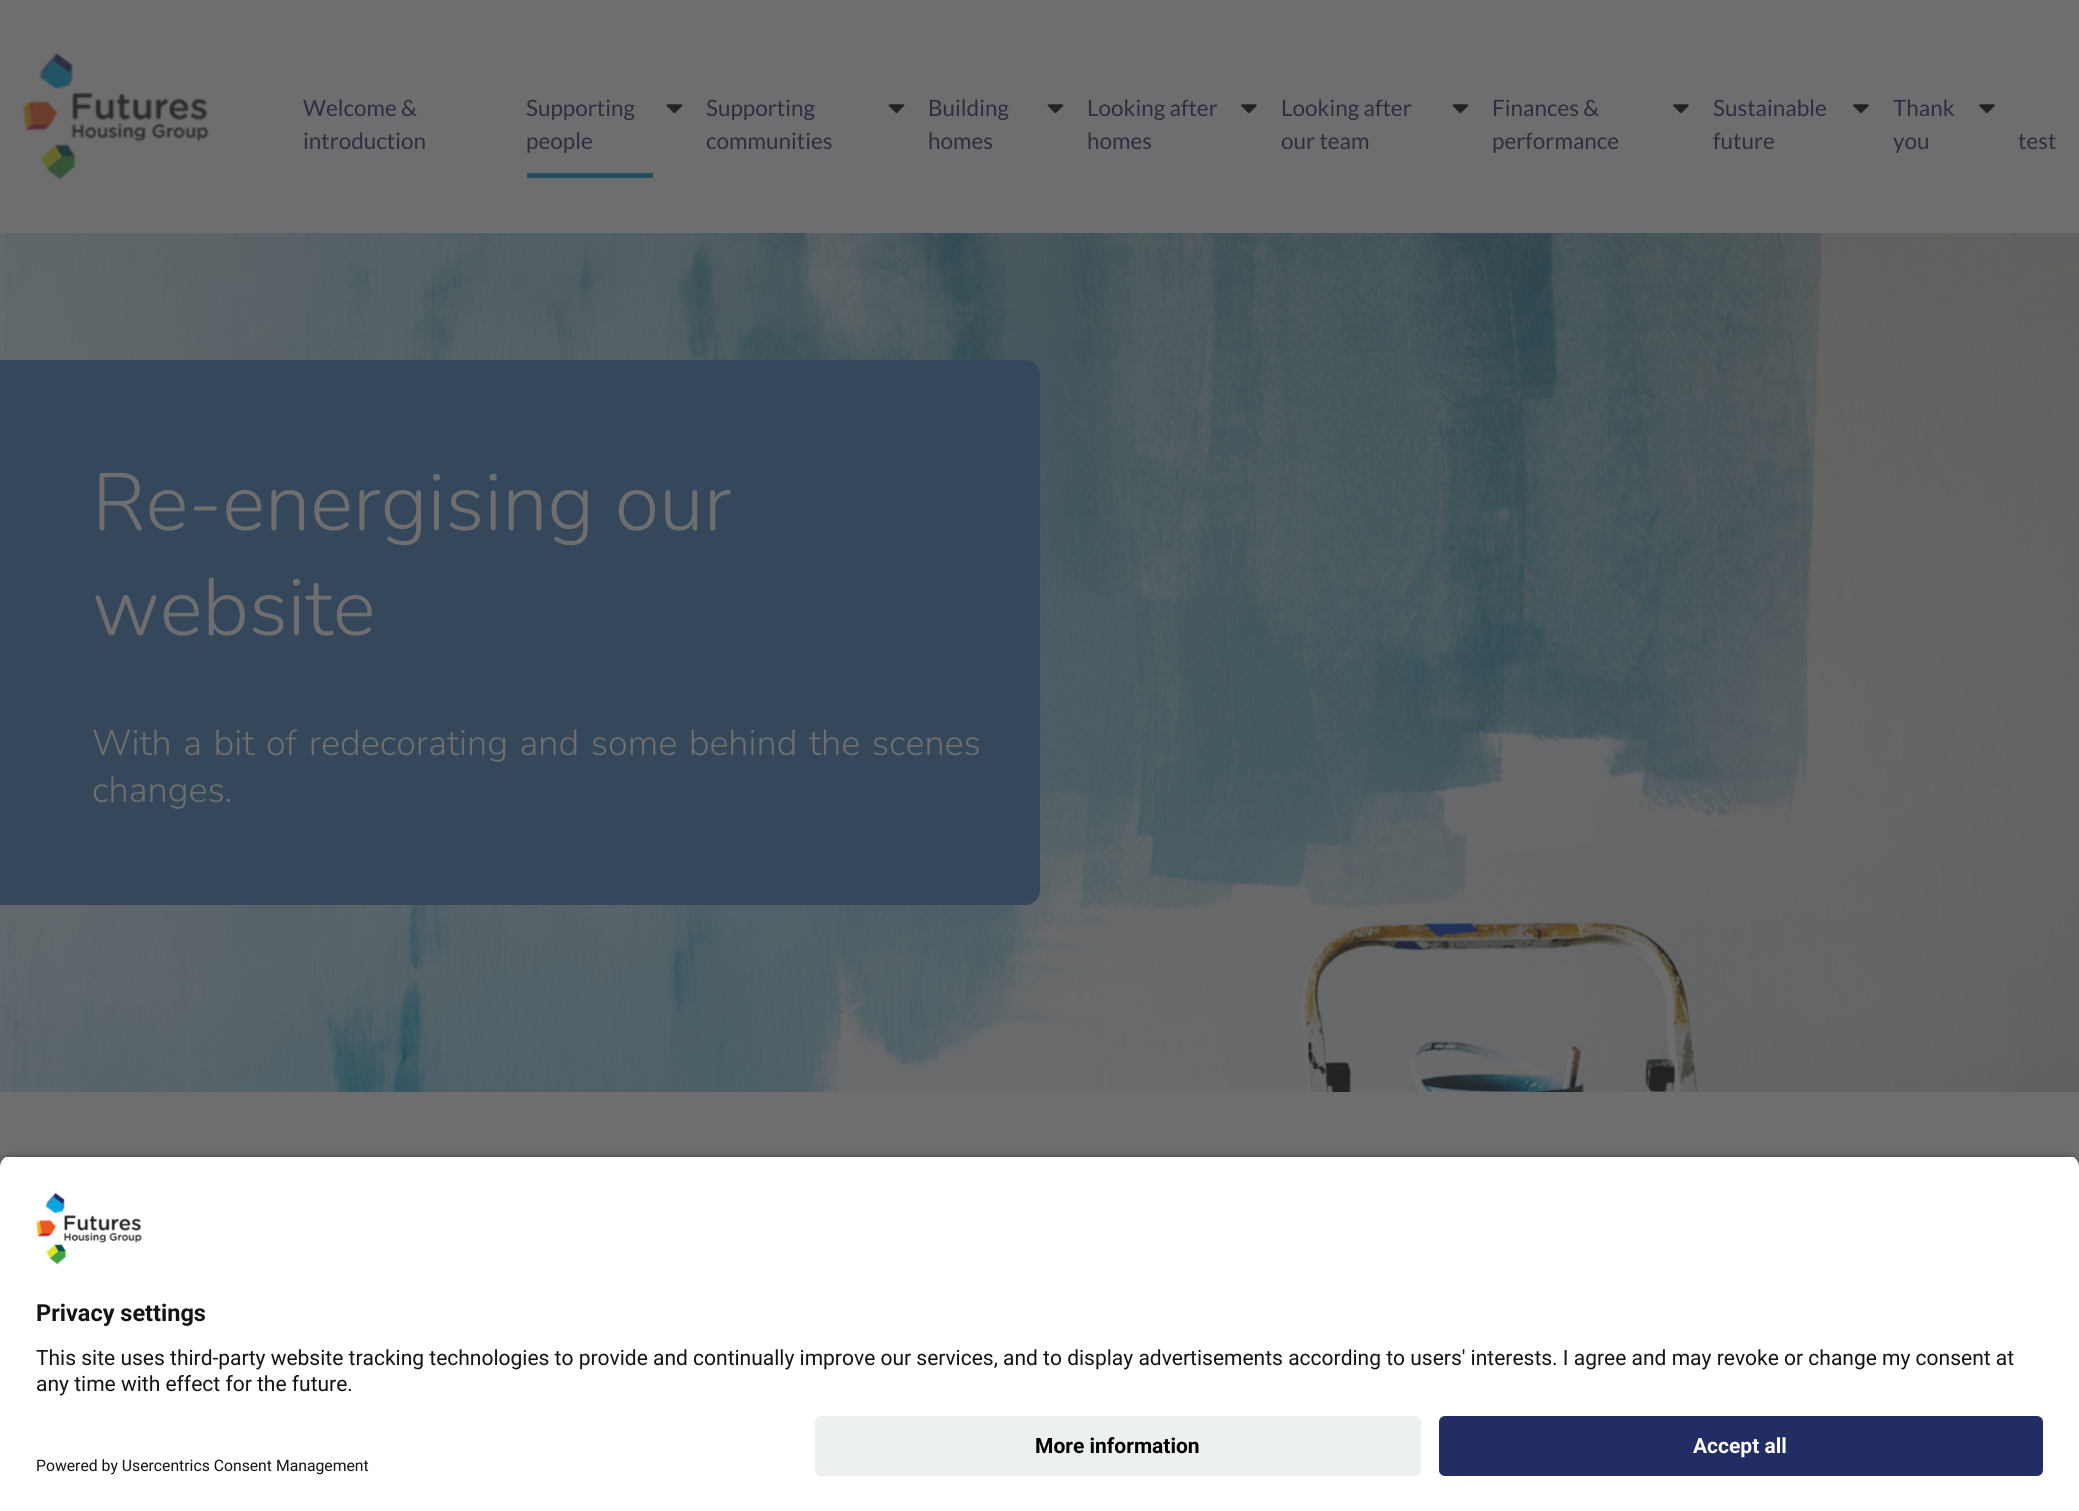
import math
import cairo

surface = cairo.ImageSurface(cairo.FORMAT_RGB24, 2079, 1511)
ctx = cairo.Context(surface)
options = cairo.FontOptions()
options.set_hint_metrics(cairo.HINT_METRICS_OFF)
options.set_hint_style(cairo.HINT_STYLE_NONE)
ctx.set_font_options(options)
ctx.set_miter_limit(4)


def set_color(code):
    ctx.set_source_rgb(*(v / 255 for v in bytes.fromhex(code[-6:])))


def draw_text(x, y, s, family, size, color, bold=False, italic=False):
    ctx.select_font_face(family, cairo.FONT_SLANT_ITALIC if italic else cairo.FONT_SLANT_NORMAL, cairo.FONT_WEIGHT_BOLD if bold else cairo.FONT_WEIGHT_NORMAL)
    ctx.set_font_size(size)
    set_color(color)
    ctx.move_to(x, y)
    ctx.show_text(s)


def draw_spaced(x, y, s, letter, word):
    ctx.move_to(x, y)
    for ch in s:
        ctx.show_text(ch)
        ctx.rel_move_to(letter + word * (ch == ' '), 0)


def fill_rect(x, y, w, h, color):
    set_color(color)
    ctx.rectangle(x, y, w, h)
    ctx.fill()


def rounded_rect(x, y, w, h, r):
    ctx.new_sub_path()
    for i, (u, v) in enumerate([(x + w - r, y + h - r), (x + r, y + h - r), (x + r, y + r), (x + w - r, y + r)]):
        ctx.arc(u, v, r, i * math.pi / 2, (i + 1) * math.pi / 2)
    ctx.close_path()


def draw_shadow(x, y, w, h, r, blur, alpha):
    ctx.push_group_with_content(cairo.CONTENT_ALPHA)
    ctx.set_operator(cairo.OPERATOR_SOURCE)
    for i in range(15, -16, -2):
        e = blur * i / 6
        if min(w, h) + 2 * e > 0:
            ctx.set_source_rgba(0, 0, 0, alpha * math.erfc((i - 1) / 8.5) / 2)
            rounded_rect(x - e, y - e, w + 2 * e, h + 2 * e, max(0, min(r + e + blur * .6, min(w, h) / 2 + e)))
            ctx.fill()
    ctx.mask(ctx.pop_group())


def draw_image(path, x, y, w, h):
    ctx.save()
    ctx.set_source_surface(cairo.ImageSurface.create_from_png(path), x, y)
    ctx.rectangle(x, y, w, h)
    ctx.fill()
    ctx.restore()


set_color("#6e6e6e")
ctx.paint()
draw_image("assets/img1.png", 22, 52, 187, 128)
draw_text(303, 116, "Welcome &", "Lato", 22.5, "#2c2f40")
draw_text(303, 149, "introduction", "Lato", 22.5, "#2c2f40")
draw_text(526, 116, "Supporting", "Lato", 22.5, "#2c2f40")
draw_text(526, 149, "people", "Lato", 22.5, "#2c2f40")
fill_rect(527, 173, 126, 5, "#234e5d")
draw_image("assets/img2.png", 666, 104, 17, 10)
draw_text(706, 116, "Supporting", "Lato", 22.5, "#2c2f40")
draw_text(706, 149, "communities", "Lato", 22.5, "#2c2f40")
draw_image("assets/img2.png", 888, 104, 17, 10)
draw_text(928, 116, "Building", "Lato", 22.5, "#2c2f40")
draw_text(928, 149, "homes", "Lato", 22.5, "#2c2f40")
draw_image("assets/img2.png", 1047, 104, 17, 10)
draw_text(1087, 116, "Looking after", "Lato", 22.5, "#2c2f40")
draw_text(1087, 149, "homes", "Lato", 22.5, "#2c2f40")
draw_image("assets/img3.png", 1241, 104, 16, 10)
draw_text(1281, 116, "Looking after", "Lato", 22.5, "#2c2f40")
draw_text(1281, 149, "our team", "Lato", 22.5, "#2c2f40")
draw_image("assets/img2.png", 1452, 104, 17, 10)
draw_text(1492, 116, "Finances &", "Lato", 22.5, "#2c2f40")
draw_text(1492, 149, "performance", "Lato", 22.5, "#2c2f40")
draw_image("assets/img3.png", 1673, 104, 16, 10)
draw_text(1713, 116, "Sustainable", "Lato", 22.5, "#2c2f40")
draw_text(1713, 149, "future", "Lato", 22.5, "#2c2f40")
draw_image("assets/img3.png", 1853, 104, 16, 10)
draw_text(1893, 116, "Thank", "Lato", 22.5, "#2c2f40")
draw_text(1893, 149, "you", "Lato", 22.5, "#2c2f40")
draw_image("assets/img3.png", 1979, 104, 16, 10)
draw_text(2018, 149, "test", "Lato", 22.5, "#2c2f40")
draw_image("assets/img4.png", 0, 233, 2079, 859)
set_color("#35475b")
ctx.new_path()
ctx.move_to(0, 360)
ctx.line_to(1025, 360)
ctx.curve_to(1033.5, 360, 1040, 366.5, 1040, 375)
ctx.line_to(1040, 890)
ctx.curve_to(1040, 898.5, 1033.5, 905, 1025, 905)
ctx.line_to(0, 905)
ctx.close_path()
ctx.fill()
draw_text(92, 530, "Re-energising our", "Nunito Light", 81, "#6e6e6e")
draw_text(92, 635, "website", "Nunito Light", 81, "#6e6e6e")
ctx.set_font_size(36)
draw_spaced(92, 755, "With a bit of redecorating and some behind the scenes", 0, 2.5)
draw_text(92, 802, "changes.", "Nunito Light", 36, "#6e6e6e")
set_color("#000000")
draw_shadow(0, 1160, 2079, 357, 12, 5, 0.8)
ctx.save()
ctx.new_path()
ctx.move_to(12, 1155)
ctx.line_to(2067, 1155)
ctx.curve_to(2073.5, 1155, 2079, 1160.5, 2079, 1167)
ctx.line_to(2079, 1404)
ctx.line_to(0, 1404)
ctx.line_to(0, 1167)
ctx.curve_to(0, 1160.5, 5.5, 1155, 12, 1155)
ctx.close_path()
ctx.clip()
fill_rect(0, 1157, 2079, 247, "#ffffff")
ctx.restore()
draw_image("assets/img5.png", 36, 1192, 107, 73)
draw_text(36, 1321, "Privacy settings", "Roboto", 23.5, "#141414", bold=True)
draw_text(36, 1365, "This site uses third-party website tracking technologies to provide and continually improve our services, and to display advertisements according to users' interests. I agree and may revoke or change my consent at", "Roboto", 21, "#141414")
draw_text(36, 1391, "any time with effect for the future.", "Roboto", 21, "#141414")
fill_rect(0, 1404, 2079, 107, "#ffffff")
set_color("#ecf0f0")
rounded_rect(815, 1416, 606, 60, 6)
ctx.fill()
draw_text(1035, 1453, "More information", "Roboto", 21, "#000000", bold=True)
set_color("#222d66")
rounded_rect(1439, 1416, 604, 60, 6)
ctx.fill()
draw_text(1693, 1453, "Accept all", "Roboto", 21, "#ffffff", bold=True)
draw_text(36, 1471, "Powered by Usercentrics Consent Management", "Roboto", 15.75, "#141414")
surface.write_to_png("output.png")
